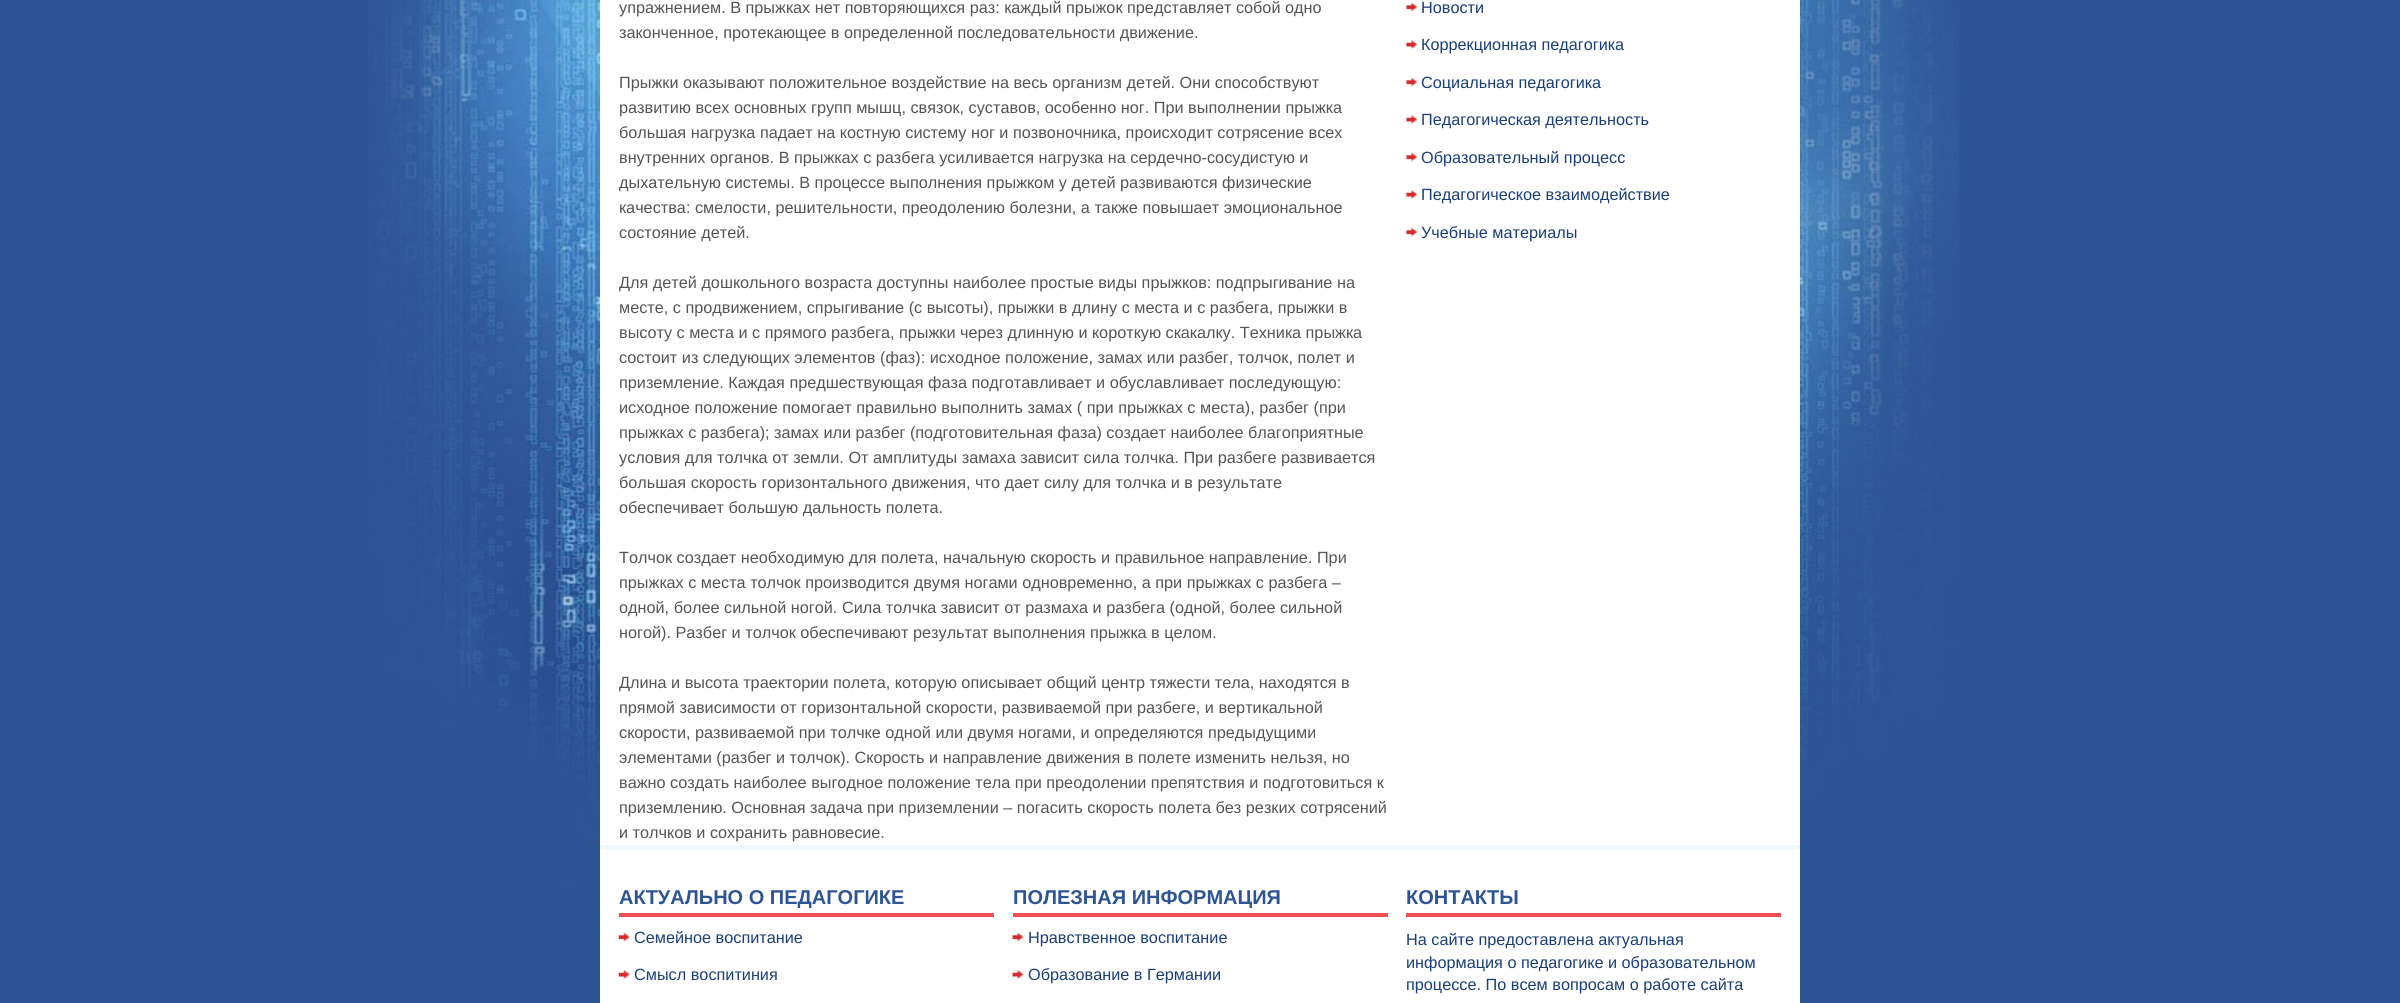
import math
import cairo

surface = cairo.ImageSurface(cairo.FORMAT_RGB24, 2400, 1003)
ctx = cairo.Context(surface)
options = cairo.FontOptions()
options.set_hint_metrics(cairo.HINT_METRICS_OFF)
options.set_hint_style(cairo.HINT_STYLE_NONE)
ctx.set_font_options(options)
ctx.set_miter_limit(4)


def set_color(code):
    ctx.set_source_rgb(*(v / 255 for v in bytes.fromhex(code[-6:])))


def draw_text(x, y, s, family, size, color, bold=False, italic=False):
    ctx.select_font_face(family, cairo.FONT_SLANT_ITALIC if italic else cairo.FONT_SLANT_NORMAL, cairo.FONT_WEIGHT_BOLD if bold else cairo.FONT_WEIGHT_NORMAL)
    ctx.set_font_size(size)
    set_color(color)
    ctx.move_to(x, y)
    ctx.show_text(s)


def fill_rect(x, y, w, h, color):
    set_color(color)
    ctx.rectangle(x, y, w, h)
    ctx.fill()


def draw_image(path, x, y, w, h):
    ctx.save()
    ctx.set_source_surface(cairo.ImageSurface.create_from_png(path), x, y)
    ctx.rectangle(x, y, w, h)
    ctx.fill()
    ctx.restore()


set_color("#2d5594")
ctx.paint()
draw_image("assets/img1.png", 368, 0, 1591, 887)
fill_rect(600, 0, 1200, 845, "#ffffff")
draw_text(619, 13, "упражнением. В прыжках нет повторяющихся раз: каждый прыжок представляет собой одно", "Liberation Sans", 16.25, "#555555")
draw_text(619, 38, "законченное, протекающее в определенной последовательности движение.", "Liberation Sans", 16.25, "#555555")
draw_text(619, 88, "Прыжки оказывают положительное воздействие на весь организм детей. Они способствуют", "Liberation Sans", 16.25, "#555555")
draw_text(619, 113, "развитию всех основных групп мышц, связок, суставов, особенно ног. При выполнении прыжка", "Liberation Sans", 16.25, "#555555")
draw_text(619, 138, "большая нагрузка падает на костную систему ног и позвоночника, происходит сотрясение всех", "Liberation Sans", 16.25, "#555555")
draw_text(619, 163, "внутренних органов. В прыжках с разбега усиливается нагрузка на сердечно-сосудистую и", "Liberation Sans", 16.25, "#555555")
ctx.save()
ctx.rectangle(619, 0, 769, 864)
ctx.clip()
draw_text(619, 188, "дыхательную системы. В процессе выполнения прыжком у детей развиваются физические", "Liberation Sans", 16.25, "#555555")
ctx.restore()
draw_text(619, 213, "качества: смелости, решительности, преодолению болезни, а также повышает эмоциональное", "Liberation Sans", 16.25, "#555555")
draw_text(619, 238, "состояние детей.", "Liberation Sans", 16.25, "#555555")
ctx.save()
ctx.rectangle(619, 0, 769, 864)
ctx.clip()
draw_text(619, 288, "Для детей дошкольного возраста доступны наиболее простые виды прыжков: подпрыгивание на", "Liberation Sans", 16.25, "#555555")
ctx.restore()
draw_text(619, 313, "месте, с продвижением, спрыгивание (с высоты), прыжки в длину с места и с разбега, прыжки в", "Liberation Sans", 16.25, "#555555")
draw_text(619, 338, "высоту с места и с прямого разбега, прыжки через длинную и короткую скакалку. Техника прыжка", "Liberation Sans", 16.25, "#555555")
draw_text(619, 363, "состоит из следующих элементов (фаз): исходное положение, замах или разбег, толчок, полет и", "Liberation Sans", 16.25, "#555555")
draw_text(619, 388, "приземление. Каждая предшествующая фаза подготавливает и обуславливает последующую:", "Liberation Sans", 16.25, "#555555")
draw_text(619, 413, "исходное положение помогает правильно выполнить замах ( при прыжках с места), разбег (при", "Liberation Sans", 16.25, "#555555")
draw_text(619, 438, "прыжках с разбега); замах или разбег (подготовительная фаза) создает наиболее благоприятные", "Liberation Sans", 16.25, "#555555")
draw_text(619, 463, "условия для толчка от земли. От амплитуды замаха зависит сила толчка. При разбеге развивается", "Liberation Sans", 16.25, "#555555")
draw_text(619, 488, "большая скорость горизонтального движения, что дает силу для толчка и в результате", "Liberation Sans", 16.25, "#555555")
draw_text(619, 513, "обеспечивает большую дальность полета.", "Liberation Sans", 16.25, "#555555")
draw_text(619, 563, "Толчок создает необходимую для полета, начальную скорость и правильное направление. При", "Liberation Sans", 16.25, "#555555")
draw_text(619, 588, "прыжках с места толчок производится двумя ногами одновременно, а при прыжках с разбега –", "Liberation Sans", 16.25, "#555555")
draw_text(619, 613, "одной, более сильной ногой. Сила толчка зависит от размаха и разбега (одной, более сильной", "Liberation Sans", 16.25, "#555555")
draw_text(619, 638, "ногой). Разбег и толчок обеспечивают результат выполнения прыжка в целом.", "Liberation Sans", 16.25, "#555555")
ctx.save()
ctx.rectangle(619, 0, 769, 864)
ctx.clip()
draw_text(619, 688, "Длина и высота траектории полета, которую описывает общий центр тяжести тела, находятся в", "Liberation Sans", 16.25, "#555555")
ctx.restore()
draw_text(619, 713, "прямой зависимости от горизонтальной скорости, развиваемой при разбеге, и вертикальной", "Liberation Sans", 16.25, "#555555")
draw_text(619, 738, "скорости, развиваемой при толчке одной или двумя ногами, и определяются предыдущими", "Liberation Sans", 16.25, "#555555")
draw_text(619, 763, "элементами (разбег и толчок). Скорость и направление движения в полете изменить нельзя, но", "Liberation Sans", 16.25, "#555555")
draw_text(619, 788, "важно создать наиболее выгодное положение тела при преодолении препятствия и подготовиться к", "Liberation Sans", 16.25, "#555555")
draw_text(619, 813, "приземлению. Основная задача при приземлении – погасить скорость полета без резких сотрясений", "Liberation Sans", 16.25, "#555555")
draw_text(619, 838, "и толчков и сохранить равновесие.", "Liberation Sans", 16.25, "#555555")
draw_image("assets/img2.png", 1406, 2, 12, 10)
draw_text(1421, 13, "Новости", "Liberation Sans", 16.25, "#193e79")
draw_image("assets/img3.png", 1406, 40, 12, 9)
draw_text(1421, 50, "Коррекционная педагогика", "Liberation Sans", 16.25, "#193e79")
draw_image("assets/img2.png", 1406, 77, 12, 10)
draw_text(1421, 88, "Социальная педагогика", "Liberation Sans", 16.25, "#193e79")
draw_image("assets/img3.png", 1406, 115, 12, 9)
draw_text(1421, 125, "Педагогическая деятельность", "Liberation Sans", 16.25, "#193e79")
draw_image("assets/img2.png", 1406, 152, 12, 10)
draw_text(1421, 163, "Образовательный процесс", "Liberation Sans", 16.25, "#193e79")
draw_image("assets/img3.png", 1406, 190, 12, 9)
draw_text(1421, 200, "Педагогическое взаимодействие", "Liberation Sans", 16.25, "#193e79")
draw_image("assets/img2.png", 1406, 227, 12, 10)
draw_text(1421, 238, "Учебные материалы", "Liberation Sans", 16.25, "#193e79")
fill_rect(600, 850, 1200, 153, "#ffffff")
fill_rect(600, 845, 1200, 5, "#f0f9fe")
fill_rect(619, 913, 375, 4, "#ef4f51")
draw_text(619, 904, "АКТУАЛЬНО О ПЕДАГОГИКЕ", "Liberation Sans", 20, "#2d5594", bold=True)
draw_image("assets/img4.png", 618, 932, 12, 10)
draw_text(634, 943, "Семейное воспитание", "Liberation Sans", 16.25, "#193e79")
draw_image("assets/img5.png", 618, 970, 12, 9)
draw_text(634, 980, "Смысл воспитиния", "Liberation Sans", 16.25, "#193e79")
fill_rect(1013, 913, 375, 4, "#ef4f51")
draw_text(1013, 904, "ПОЛЕЗНАЯ ИНФОРМАЦИЯ", "Liberation Sans", 20, "#2d5594", bold=True)
draw_image("assets/img6.png", 1012, 932, 12, 10)
draw_text(1028, 943, "Нравственное воспитание", "Liberation Sans", 16.25, "#193e79")
draw_image("assets/img7.png", 1012, 970, 12, 9)
draw_text(1028, 980, "Образование в Германии", "Liberation Sans", 16.25, "#193e79")
fill_rect(1406, 913, 375, 4, "#ef4f51")
draw_text(1406, 904, "КОНТАКТЫ", "Liberation Sans", 20, "#2d5594", bold=True)
draw_text(1406, 945, "На сайте предоставлена актуальная", "Liberation Sans", 16.25, "#193e79")
draw_text(1406, 968, "информация о педагогике и образовательном", "Liberation Sans", 16.25, "#193e79")
draw_text(1406, 990, "процессе. По всем вопросам о работе сайта", "Liberation Sans", 16.25, "#193e79")
surface.write_to_png("output.png")
